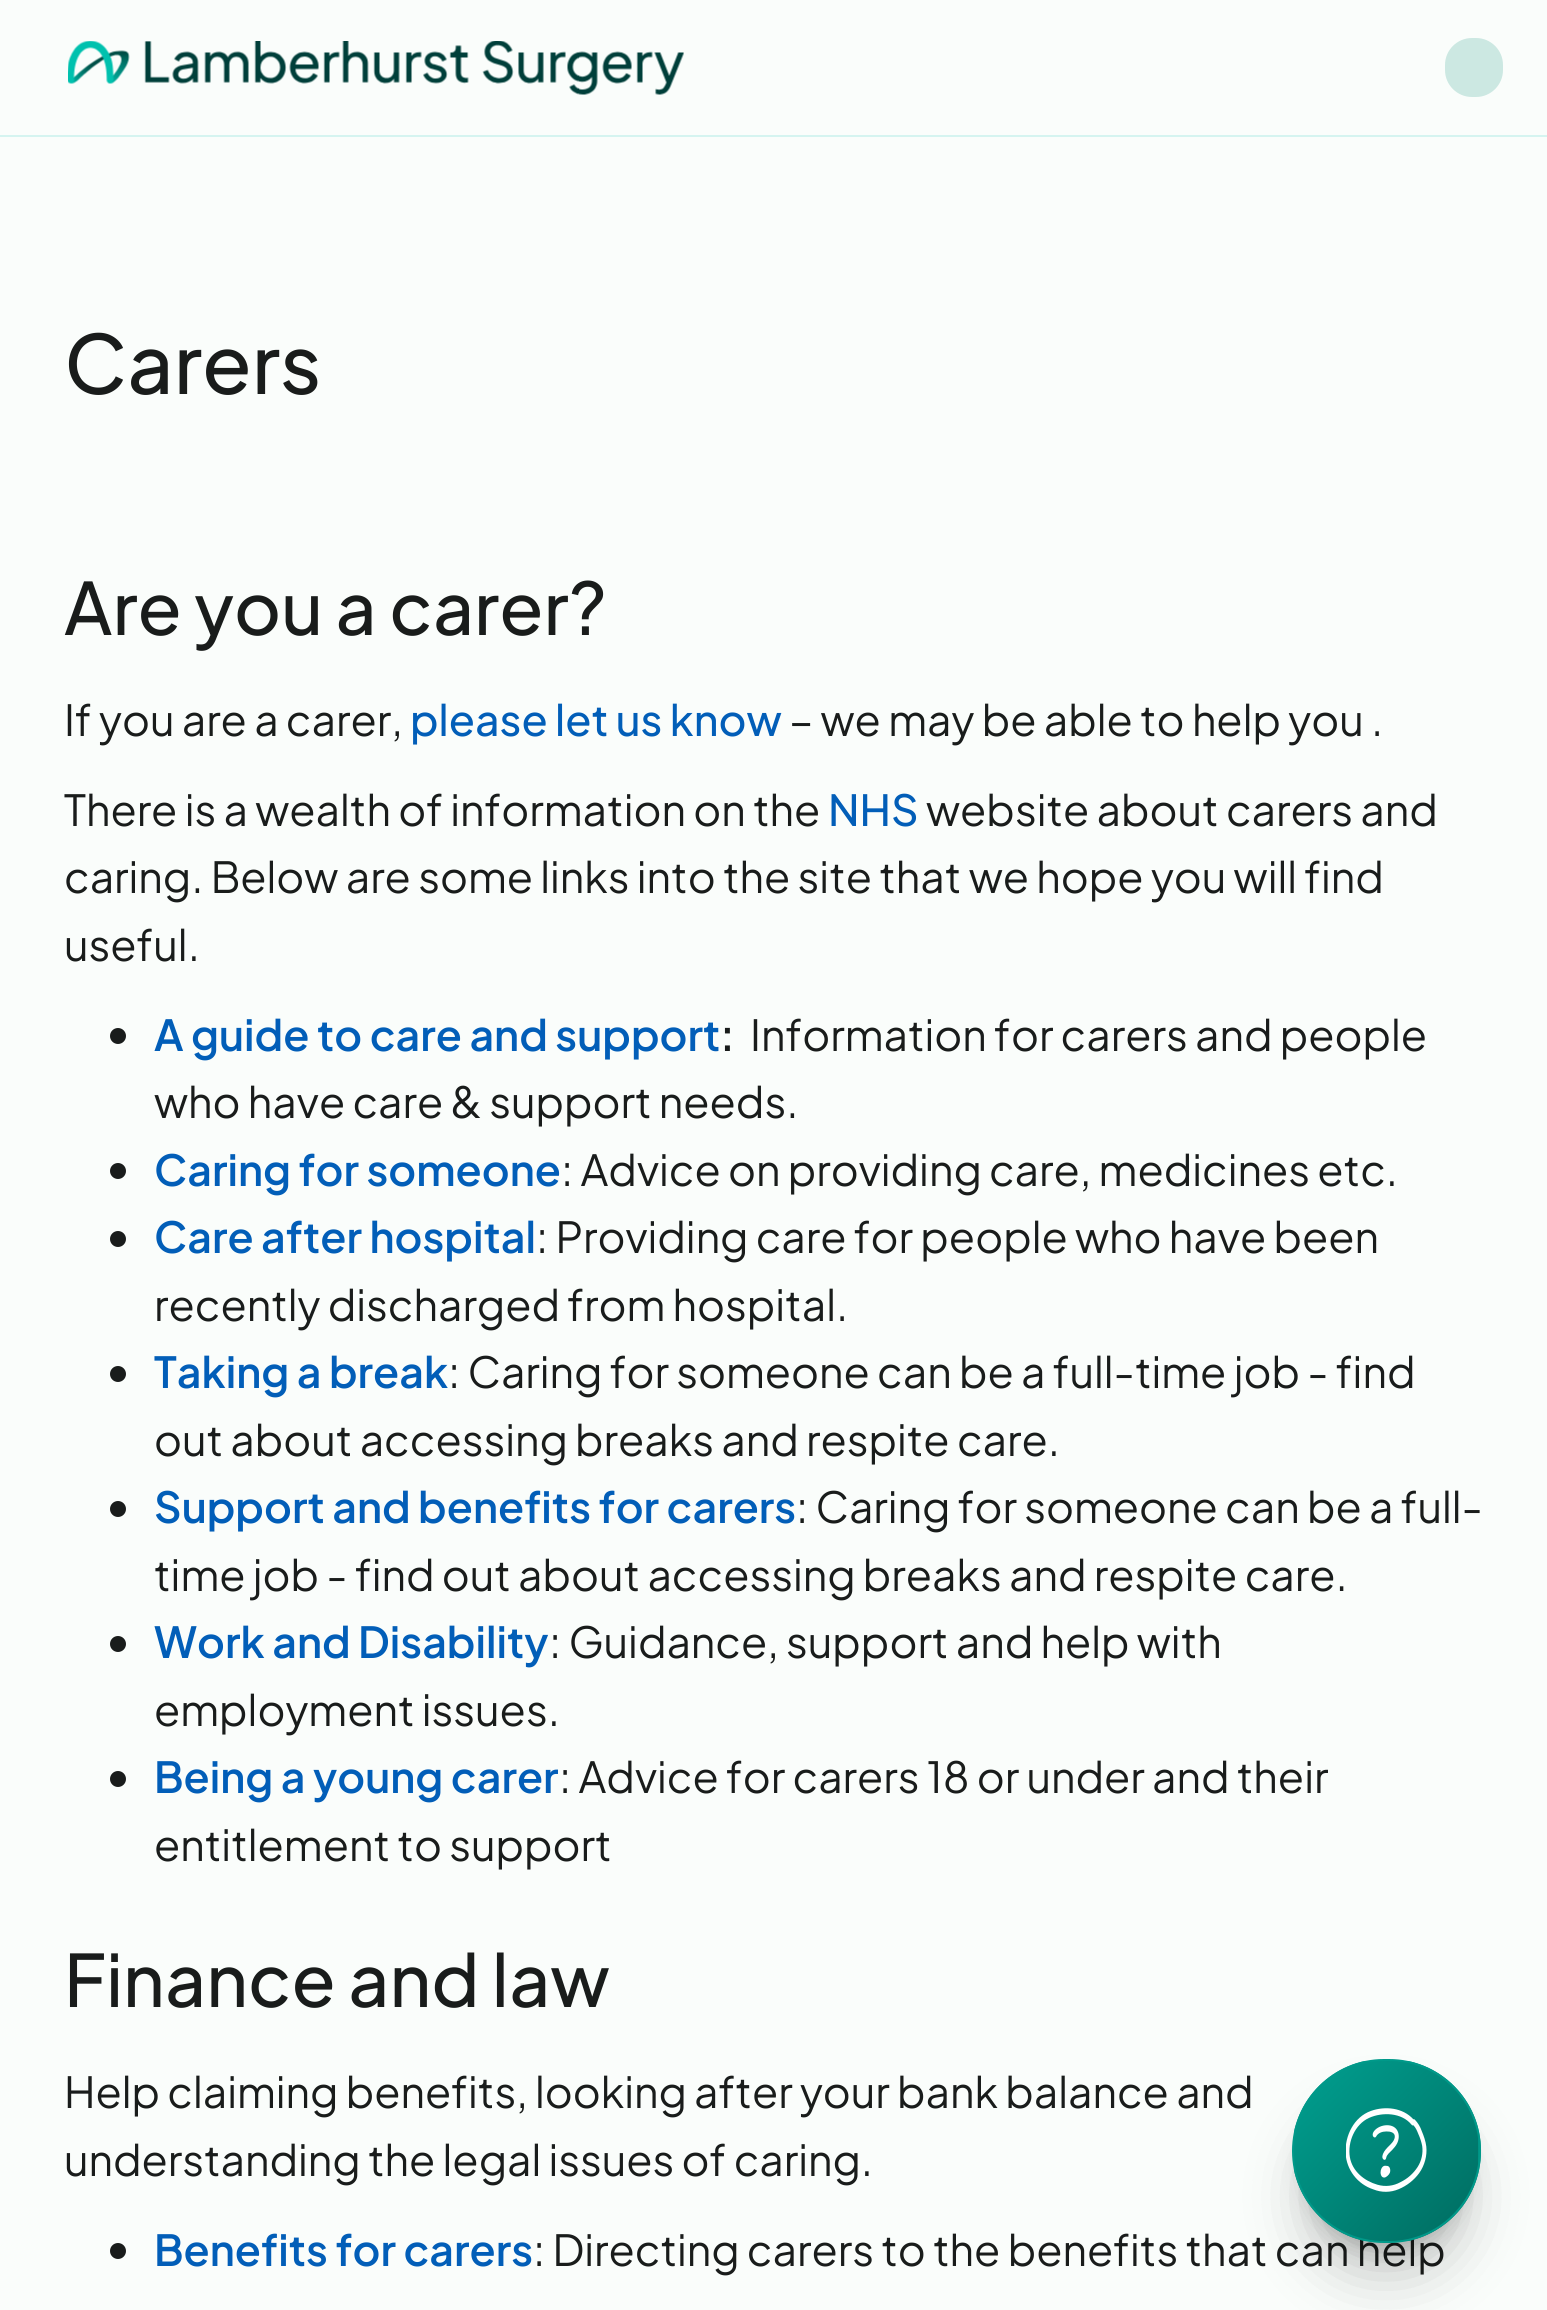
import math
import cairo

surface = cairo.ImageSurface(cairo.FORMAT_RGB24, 1547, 2310)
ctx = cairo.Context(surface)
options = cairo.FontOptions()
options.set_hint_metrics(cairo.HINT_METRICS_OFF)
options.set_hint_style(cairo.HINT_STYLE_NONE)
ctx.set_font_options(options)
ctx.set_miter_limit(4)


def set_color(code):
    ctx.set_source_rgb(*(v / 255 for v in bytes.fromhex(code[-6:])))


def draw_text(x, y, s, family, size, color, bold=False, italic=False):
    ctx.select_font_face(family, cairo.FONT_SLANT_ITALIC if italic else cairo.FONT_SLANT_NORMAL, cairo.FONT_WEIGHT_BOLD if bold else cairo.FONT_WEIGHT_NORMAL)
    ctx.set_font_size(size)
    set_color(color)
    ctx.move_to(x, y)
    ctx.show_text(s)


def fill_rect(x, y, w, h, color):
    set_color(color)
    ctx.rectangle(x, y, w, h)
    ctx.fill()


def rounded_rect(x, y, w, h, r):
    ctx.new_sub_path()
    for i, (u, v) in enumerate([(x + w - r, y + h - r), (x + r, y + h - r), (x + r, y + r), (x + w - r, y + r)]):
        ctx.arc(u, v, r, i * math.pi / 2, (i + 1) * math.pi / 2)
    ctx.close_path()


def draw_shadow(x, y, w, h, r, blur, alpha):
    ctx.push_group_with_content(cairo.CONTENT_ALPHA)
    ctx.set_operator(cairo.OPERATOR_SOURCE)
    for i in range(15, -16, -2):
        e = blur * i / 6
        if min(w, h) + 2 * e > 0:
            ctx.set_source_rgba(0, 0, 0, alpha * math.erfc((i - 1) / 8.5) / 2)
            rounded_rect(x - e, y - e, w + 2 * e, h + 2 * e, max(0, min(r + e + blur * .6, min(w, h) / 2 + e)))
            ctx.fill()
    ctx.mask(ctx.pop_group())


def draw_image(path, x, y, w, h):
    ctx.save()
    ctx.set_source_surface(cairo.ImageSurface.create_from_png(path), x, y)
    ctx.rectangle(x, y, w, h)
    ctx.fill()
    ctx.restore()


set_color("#fafdfb")
ctx.paint()
fill_rect(0, 135, 1547, 2, "#d5f4f0")
draw_image("assets/img1.png", 68, 41, 616, 54)
set_color("#cce8e2")
rounded_rect(1445, 38, 58, 59, 27)
ctx.fill()
draw_text(64, 394, "Carers", "Plus Jakarta Sans Medium", 81, "#191c1b")
draw_text(64, 635, "Are you a carer?", "Plus Jakarta Sans Medium", 72, "#191c1b")
draw_text(64, 736, "If you are a carer,", "Plus Jakarta Sans", 42.75, "#191c1b")
draw_text(410, 736, "please let us know", "Plus Jakarta Sans Medium", 42.75, "#025eb8")
draw_text(789, 736, "– we may be able to help you .", "Plus Jakarta Sans", 42.75, "#191c1b")
draw_text(64, 826, "There is a wealth of information on the", "Plus Jakarta Sans", 42.75, "#191c1b")
draw_text(828, 826, "NHS", "Plus Jakarta Sans Medium", 42.75, "#025eb8")
draw_text(926, 826, "website about carers and", "Plus Jakarta Sans", 42.75, "#191c1b")
draw_text(64, 893, "caring. Below are some links into the site that we hope you will find", "Plus Jakarta Sans", 42.75, "#191c1b")
draw_text(64, 961, "useful.", "Plus Jakarta Sans", 42.75, "#191c1b")
ctx.new_path()
ctx.arc(118, 1036, 8, 0, 2 * math.pi)
ctx.fill()
draw_text(154, 1051, "A guide to care and support", "Plus Jakarta Sans SemiBold", 42.75, "#025eb8")
draw_text(720, 1051, ":", "Plus Jakarta Sans SemiBold", 42.75, "#191c1b")
draw_text(750, 1051, "Information for carers and people", "Plus Jakarta Sans", 42.75, "#191c1b")
draw_text(154, 1118, "who have care & support needs.", "Plus Jakarta Sans", 42.75, "#191c1b")
ctx.new_path()
ctx.arc(118, 1171, 8, 0, 2 * math.pi)
ctx.fill()
draw_text(154, 1186, "Caring for someone", "Plus Jakarta Sans SemiBold", 42.75, "#025eb8")
draw_text(561, 1186, ": Advice on providing care, medicines etc.", "Plus Jakarta Sans", 42.75, "#191c1b")
ctx.new_path()
ctx.arc(118, 1239, 8, 0, 2 * math.pi)
ctx.fill()
draw_text(154, 1253, "Care after hospital", "Plus Jakarta Sans SemiBold", 42.75, "#025eb8")
draw_text(536, 1253, ": Providing care for people who have been", "Plus Jakarta Sans", 42.75, "#191c1b")
draw_text(154, 1321, "recently discharged from hospital.", "Plus Jakarta Sans", 42.75, "#191c1b")
ctx.new_path()
ctx.arc(118, 1374, 8, 0, 2 * math.pi)
ctx.fill()
draw_text(154, 1388, "Taking a break", "Plus Jakarta Sans SemiBold", 42.75, "#025eb8")
draw_text(448, 1388, ": Caring for someone can be a full-time job - find", "Plus Jakarta Sans", 42.75, "#191c1b")
draw_text(154, 1456, "out about accessing breaks and respite care.", "Plus Jakarta Sans", 42.75, "#191c1b")
ctx.new_path()
ctx.arc(118, 1509, 8, 0, 2 * math.pi)
ctx.fill()
draw_text(154, 1523, "Support and benefits for carers", "Plus Jakarta Sans SemiBold", 42.75, "#025eb8")
draw_text(796, 1523, ": Caring for someone can be a full-", "Plus Jakarta Sans", 42.75, "#191c1b")
draw_text(154, 1591, "time job - find out about accessing breaks and respite care.", "Plus Jakarta Sans", 42.75, "#191c1b")
ctx.new_path()
ctx.arc(118, 1644, 8, 0, 2 * math.pi)
ctx.fill()
draw_text(154, 1658, "Work and Disability", "Plus Jakarta Sans SemiBold", 42.75, "#025eb8")
draw_text(549, 1658, ": Guidance, support and help with", "Plus Jakarta Sans", 42.75, "#191c1b")
draw_text(154, 1726, "employment issues.", "Plus Jakarta Sans", 42.75, "#191c1b")
ctx.new_path()
ctx.arc(118, 1779, 8, 0, 2 * math.pi)
ctx.fill()
draw_text(154, 1793, "Being a young carer", "Plus Jakarta Sans SemiBold", 42.75, "#025eb8")
draw_text(559, 1793, ": Advice for carers 18 or under and their", "Plus Jakarta Sans", 42.75, "#191c1b")
draw_text(154, 1861, "entitlement to support", "Plus Jakarta Sans", 42.75, "#191c1b")
draw_text(64, 2007, "Finance and law", "Plus Jakarta Sans Medium", 72, "#191c1b")
draw_text(64, 2108, "Help claiming benefits, looking after your bank balance and", "Plus Jakarta Sans", 42.75, "#191c1b")
draw_text(64, 2176, "understanding the legal issues of caring.", "Plus Jakarta Sans", 42.75, "#191c1b")
ctx.new_path()
ctx.arc(118, 2251, 8, 0, 2 * math.pi)
ctx.fill()
draw_text(154, 2266, "Benefits for carers", "Plus Jakarta Sans SemiBold", 42.75, "#025eb8")
draw_text(533, 2266, ": Directing carers to the benefits that can help", "Plus Jakarta Sans", 42.75, "#191c1b")
set_color("#000000")
draw_shadow(1305, 2090, 162, 158, 79, 11, 0.2)
draw_shadow(1303, 2115, 166, 162, 81, 28, 0.2)
ctx.save()
rounded_rect(1292, 2059, 189, 184, 92)
ctx.clip()
gradient = cairo.LinearGradient(1477, 2242, 1295, 2060)
gradient.add_color_stop_rgba(0, 0, 0.42, 0.376, 1)
gradient.add_color_stop_rgba(1, 0, 0.627, 0.565, 1)
ctx.set_source(gradient)
ctx.rectangle(1294, 2061, 184, 180)
ctx.fill()
gradient = cairo.LinearGradient(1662, 2242, 1479, 2060)
gradient.add_color_stop_rgba(0, 0, 0.42, 0.376, 1)
gradient.add_color_stop_rgba(1, 0, 0.627, 0.565, 1)
ctx.set_source(gradient)
ctx.rectangle(1478, 2128, 3, 46)
ctx.fill()
ctx.restore()
rounded_rect(1293, 2060, 187, 182, 91)
set_color("#009989")
ctx.stroke()
draw_image("assets/img2.png", 1346, 2108, 81, 84)
surface.write_to_png("output.png")
